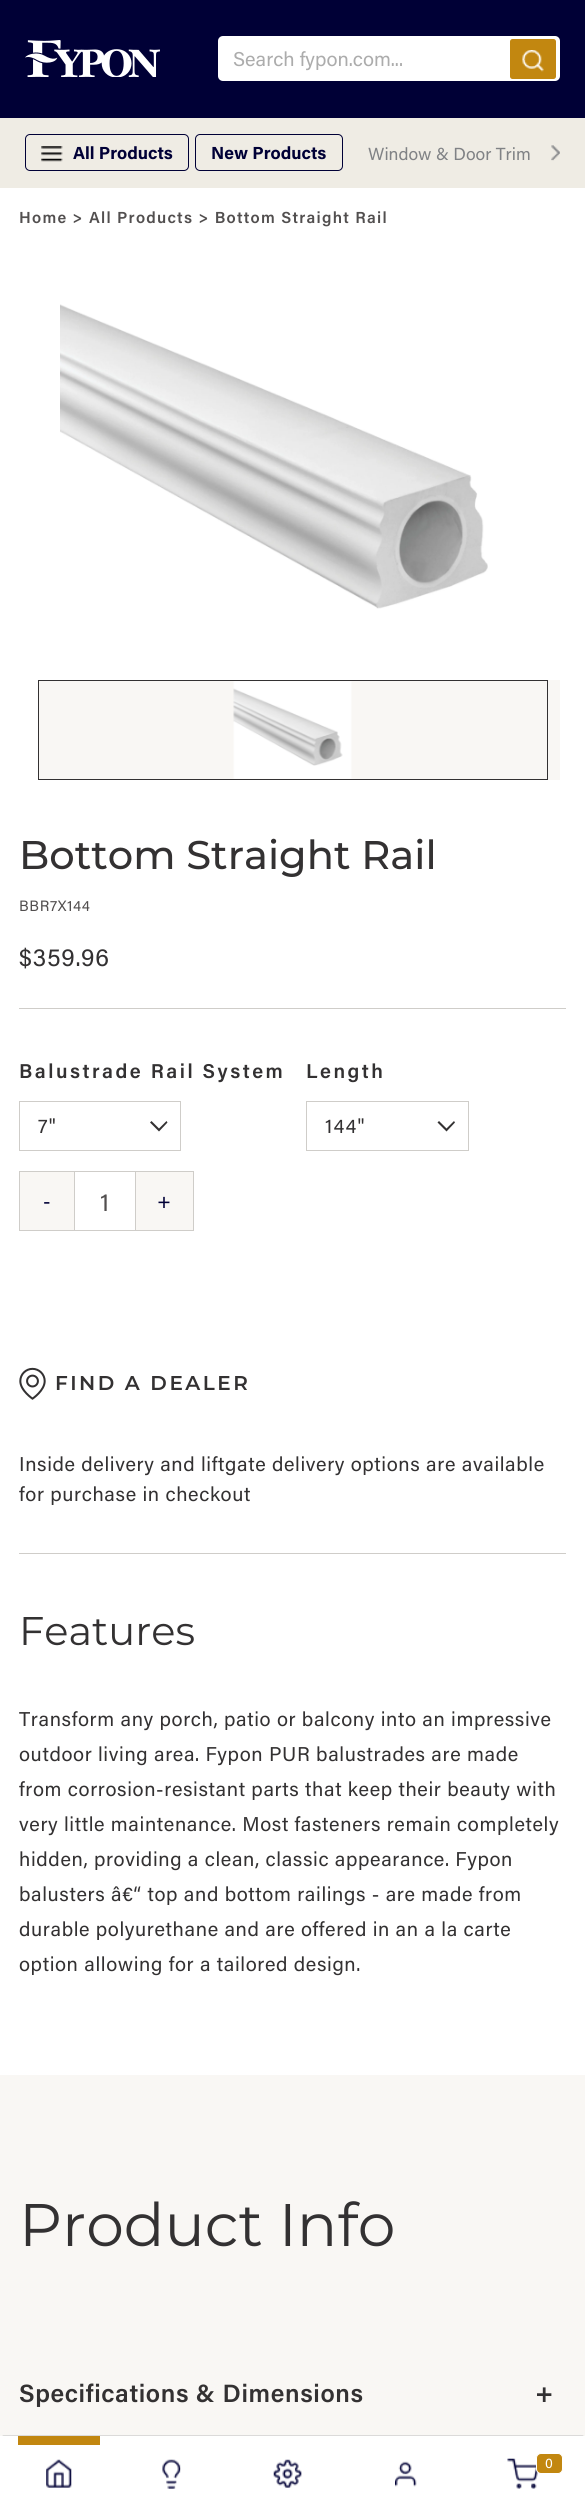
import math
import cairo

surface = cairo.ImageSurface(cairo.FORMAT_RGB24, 585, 2511)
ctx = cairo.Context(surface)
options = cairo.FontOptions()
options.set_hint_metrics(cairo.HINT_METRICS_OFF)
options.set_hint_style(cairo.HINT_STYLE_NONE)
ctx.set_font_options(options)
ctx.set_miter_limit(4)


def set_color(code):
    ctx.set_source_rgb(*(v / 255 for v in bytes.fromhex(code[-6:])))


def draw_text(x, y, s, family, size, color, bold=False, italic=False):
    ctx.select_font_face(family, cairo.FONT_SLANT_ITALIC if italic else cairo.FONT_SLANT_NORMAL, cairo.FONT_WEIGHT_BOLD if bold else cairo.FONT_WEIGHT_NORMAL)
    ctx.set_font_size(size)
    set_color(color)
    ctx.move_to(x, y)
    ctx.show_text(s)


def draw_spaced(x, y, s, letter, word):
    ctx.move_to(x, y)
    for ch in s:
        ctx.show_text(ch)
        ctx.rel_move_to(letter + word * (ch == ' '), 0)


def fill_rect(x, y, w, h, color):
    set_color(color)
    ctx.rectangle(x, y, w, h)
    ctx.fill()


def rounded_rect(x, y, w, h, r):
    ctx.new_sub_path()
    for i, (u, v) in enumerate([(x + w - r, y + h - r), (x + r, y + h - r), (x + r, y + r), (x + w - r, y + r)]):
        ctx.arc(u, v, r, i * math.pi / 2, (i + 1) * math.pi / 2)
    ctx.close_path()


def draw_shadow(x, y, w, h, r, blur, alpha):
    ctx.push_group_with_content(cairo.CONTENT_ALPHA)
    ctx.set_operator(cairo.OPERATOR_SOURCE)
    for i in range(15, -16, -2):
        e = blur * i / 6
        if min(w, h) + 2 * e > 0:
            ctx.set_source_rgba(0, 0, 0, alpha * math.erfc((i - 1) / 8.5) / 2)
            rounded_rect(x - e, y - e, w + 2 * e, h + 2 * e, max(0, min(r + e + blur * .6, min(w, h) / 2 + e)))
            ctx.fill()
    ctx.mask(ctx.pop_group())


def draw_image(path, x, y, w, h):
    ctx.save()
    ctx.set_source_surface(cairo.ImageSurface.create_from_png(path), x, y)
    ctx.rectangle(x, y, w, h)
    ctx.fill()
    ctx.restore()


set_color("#ffffff")
ctx.paint()
fill_rect(0, 0, 585, 118, "#000036")
draw_image("assets/img1.png", 25, 40, 135, 37)
set_color("#ffffff")
rounded_rect(218, 36, 342, 45, 5)
ctx.fill()
draw_text(233, 66, "Search fypon.com...", "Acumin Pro", 20, "#acacac")
set_color("#c28710")
rounded_rect(510, 39, 46, 40, 2.5)
ctx.fill()
draw_image("assets/img2.png", 522, 50, 22, 22)
fill_rect(0, 118, 585, 70, "#efece4")
rounded_rect(25.5, 134.5, 163, 36, 4.5)
set_color("#000036")
ctx.set_line_width(1)
ctx.stroke()
draw_image("assets/img3.png", 41, 146, 22, 16)
draw_text(73, 159, "All Products", "Acumin Pro", 17.5, "#000036", bold=True)
rounded_rect(195.5, 134.5, 147, 36, 4.5)
ctx.stroke()
draw_text(211, 159, "New Products", "Acumin Pro", 17.5, "#000036", bold=True)
draw_text(368, 160, "Window & Door Trim", "Acumin Pro", 17.5, "#808285")
draw_image("assets/img4.png", 551, 145, 9, 16)
fill_rect(0, 2075, 585, 361, "#f9f7f4")
set_color("#808285")
draw_shadow(3, 2436, 580, 70, 0, 0.5, 1)
fill_rect(2, 2436, 582, 71, "#ffffff")
fill_rect(18, 2436, 82, 9, "#c28710")
draw_image("assets/img5.png", 46, 2459, 26, 29)
draw_image("assets/img6.png", 162, 2459, 19, 30)
draw_image("assets/img7.png", 273, 2459, 29, 29)
draw_image("assets/img8.png", 395, 2461, 22, 26)
draw_image("assets/img9.png", 507, 2458, 31, 31)
rounded_rect(536.5, 2453.5, 26, 20, 4.5)
ctx.fill_preserve()
set_color("#ffffff")
ctx.stroke()
ctx.set_font_size(14)
draw_spaced(545, 2468, "0", 1.25, 0)
ctx.select_font_face("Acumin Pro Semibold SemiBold")
ctx.set_font_size(16)
set_color("#524f4f")
draw_spaced(19, 223, "Home > All Products > Bottom Straight Rail", 1.25, 0)
draw_image("assets/img10.png", 60, 304, 428, 305)
fill_rect(39, 681, 508, 98, "#f9f7f4")
draw_image("assets/img11.png", 233, 681, 119, 98)
ctx.rectangle(38.5, 680.5, 509, 99)
set_color("#333132")
ctx.stroke()
fill_rect(548, 680, 12, 100, "#f9f7f4")
draw_text(19, 869, "Bottom Straight Rail", "Montserrat Medium", 40, "#333132")
ctx.select_font_face("Acumin Pro")
ctx.set_font_size(15)
set_color("#524f4f")
draw_spaced(19, 911, "BBR7X144", 0.62, 0)
fill_rect(19, 1008, 547, 1, "#cfcdc9")
ctx.set_font_size(25)
set_color("#333132")
draw_spaced(19, 966, "$359.96", 0.62, 0)
fill_rect(19, 1553, 547, 1, "#cfcdc9")
ctx.select_font_face("Acumin Pro Semibold SemiBold")
ctx.set_font_size(20)
set_color("#333132")
draw_spaced(19, 1078, "Balustrade Rail System", 2.5, 0)
ctx.set_fill_rule(cairo.FILL_RULE_EVEN_ODD)
ctx.new_path()
ctx.move_to(167.5, 1122.5)
ctx.line_to(159, 1131.5)
ctx.line_to(150, 1122.5)
ctx.line_to(151.5, 1121)
ctx.line_to(159, 1128.5)
ctx.line_to(166.5, 1121)
ctx.close_path()
ctx.fill()
ctx.rectangle(19.5, 1101.5, 161, 49)
set_color("#cfcdc9")
ctx.stroke()
ctx.select_font_face("Acumin Pro")
set_color("#333132")
draw_spaced(38, 1133, "7\"", 1.25, 0)
ctx.select_font_face("Acumin Pro Semibold SemiBold")
draw_spaced(306, 1078, "Length", 2.5, 0)
ctx.new_path()
ctx.move_to(455, 1122.5)
ctx.line_to(446.5, 1131.5)
ctx.line_to(437.5, 1122.5)
ctx.line_to(439, 1121)
ctx.line_to(446.5, 1128.5)
ctx.line_to(454, 1121)
ctx.close_path()
ctx.fill()
ctx.rectangle(306.5, 1101.5, 162, 49)
set_color("#cfcdc9")
ctx.stroke()
ctx.select_font_face("Acumin Pro")
set_color("#333132")
draw_spaced(325, 1133, "144\"", 1.25, 0)
fill_rect(20, 1172, 54, 58, "#f9f7f4")
fill_rect(19, 1171, 55, 1, "#cfcdc9")
fill_rect(19, 1230, 55, 1, "#cfcdc9")
fill_rect(19, 1171, 1, 60, "#cfcdc9")
set_color("#000036")
draw_spaced(43, 1208, "-", 1.25, 0)
ctx.rectangle(74.5, 1171.5, 61, 59)
set_color("#cfcdc9")
ctx.stroke()
ctx.set_font_size(25)
set_color("#524f4f")
draw_spaced(100, 1211, "1", 1.25, 0)
fill_rect(136, 1172, 57, 58, "#f9f7f4")
fill_rect(136, 1171, 58, 1, "#cfcdc9")
fill_rect(193, 1171, 1, 60, "#cfcdc9")
fill_rect(136, 1230, 58, 1, "#cfcdc9")
ctx.set_font_size(20)
set_color("#000036")
draw_spaced(157, 1208, "+", 1.25, 0)
draw_image("assets/img12.png", 19, 1367, 27, 33)
ctx.select_font_face("Montserrat SemiBold")
set_color("#333132")
draw_spaced(55, 1390, "FIND A DEALER", 2.5, 0)
ctx.select_font_face("Acumin Pro")
draw_spaced(19, 1471, "Inside delivery and liftgate delivery options are available", 0.62, 0)
draw_spaced(19, 1501, "for purchase in checkout", 0.62, 0)
draw_text(19, 1645, "Features", "Montserrat", 40, "#333132")
ctx.select_font_face("Acumin Pro")
ctx.set_font_size(20)
draw_spaced(19, 1726, "Transform any porch, patio or balcony into an impressive", 0.62, 0)
draw_spaced(19, 1761, "outdoor living area. Fypon PUR balustrades are made", 0.62, 0)
draw_spaced(19, 1796, "from corrosion-resistant parts that keep their beauty with", 0.62, 0)
draw_spaced(19, 1831, "very little maintenance. Most fasteners remain completely", 0.62, 0)
draw_spaced(19, 1866, "hidden, providing a clean, classic appearance. Fypon", 0.62, 0)
draw_spaced(19, 1901, "balusters â€“ top and bottom railings - are made from", 0.62, 0)
draw_spaced(19, 1936, "durable polyurethane and are offered in an a la carte", 0.62, 0)
draw_spaced(19, 1971, "option allowing for a tailored design.", 0.62, 0)
draw_text(19, 2246, "Product Info", "Montserrat", 60, "#333132")
ctx.select_font_face("Acumin Pro Semibold SemiBold")
ctx.set_font_size(25)
draw_spaced(19, 2402, "Specifications & Dimensions", 0.62, 0)
ctx.set_font_size(26)
draw_spaced(535, 2402, "+", 0.62, 0)
surface.write_to_png("output.png")
